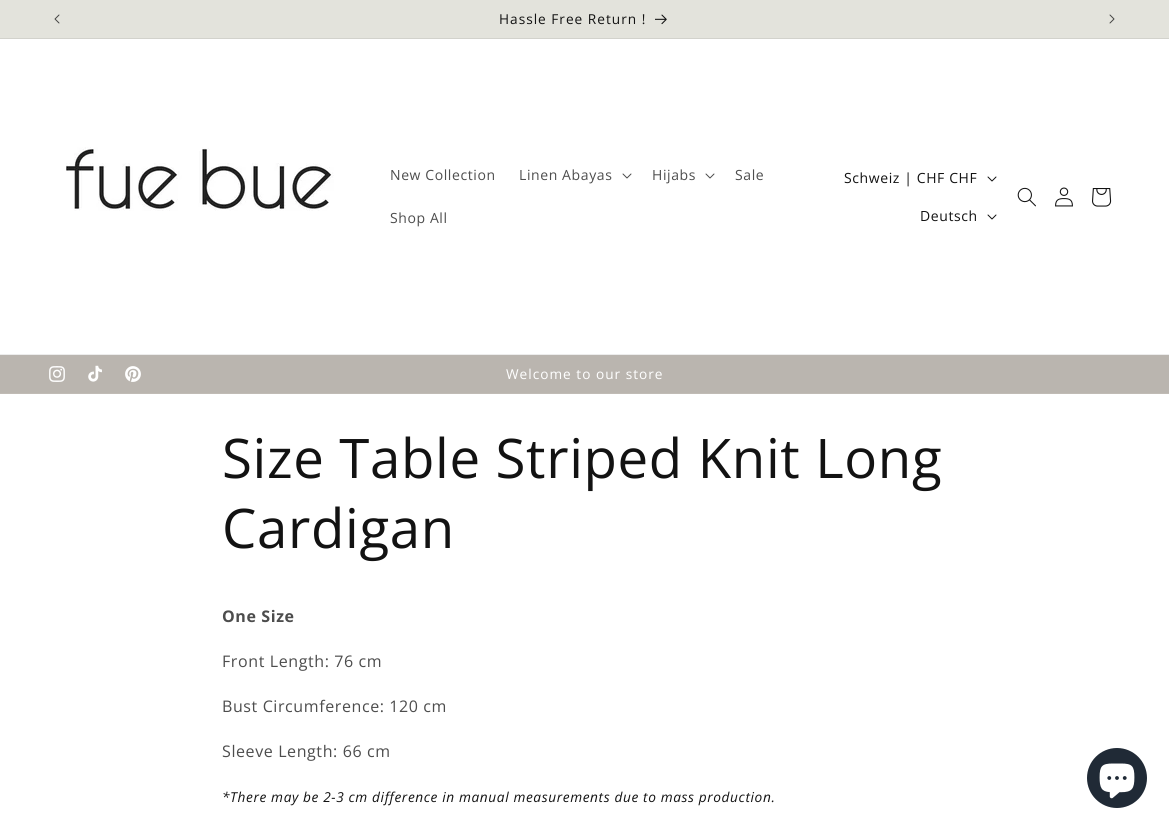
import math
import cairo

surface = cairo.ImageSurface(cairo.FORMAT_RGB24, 1169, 829)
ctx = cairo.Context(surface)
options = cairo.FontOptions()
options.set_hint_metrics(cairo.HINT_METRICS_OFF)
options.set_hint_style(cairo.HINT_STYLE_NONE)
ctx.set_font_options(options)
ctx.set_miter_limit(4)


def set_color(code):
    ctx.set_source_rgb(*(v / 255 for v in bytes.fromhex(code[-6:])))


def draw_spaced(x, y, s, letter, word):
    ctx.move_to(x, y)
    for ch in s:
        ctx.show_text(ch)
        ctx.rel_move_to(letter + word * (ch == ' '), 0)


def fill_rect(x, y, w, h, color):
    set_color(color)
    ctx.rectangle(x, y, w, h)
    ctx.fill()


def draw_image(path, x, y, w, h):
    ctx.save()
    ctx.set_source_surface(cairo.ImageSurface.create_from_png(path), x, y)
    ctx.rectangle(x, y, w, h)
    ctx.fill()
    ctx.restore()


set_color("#ffffff")
ctx.paint()
fill_rect(0, 0, 1169, 38, "#e3e3dc")
fill_rect(0, 38, 1169, 1, "#d2d2cc")
draw_image("assets/img1.png", 54, 14, 6, 10)
ctx.select_font_face("Open Sans")
ctx.set_font_size(13.65)
set_color("#121212")
draw_spaced(499, 24, "Hassle Free Return !", 1, 0)
draw_image("assets/img2.png", 655, 14, 12, 11)
draw_image("assets/img3.png", 1109, 14, 6, 10)
fill_rect(0, 354, 1169, 1, "#ececec")
draw_image("assets/img4.png", 66, 147, 268, 64)
ctx.set_font_size(14)
set_color("#4d4d4d")
draw_spaced(390, 180, "New Collection", 0.6, 0)
draw_spaced(519, 180, "Linen Abayas", 0.6, 0)
draw_image("assets/img5.png", 622, 173, 10, 6)
draw_spaced(652, 180, "Hijabs", 0.6, 0)
draw_image("assets/img5.png", 705, 173, 10, 6)
draw_spaced(735, 180, "Sale", 0.6, 0)
draw_spaced(390, 223, "Shop All", 0.6, 0)
set_color("#121212")
draw_spaced(844, 183, "Schweiz | CHF CHF", 0.6, 0)
draw_image("assets/img6.png", 987, 176, 10, 6)
draw_spaced(920, 221, "Deutsch", 0.6, 0)
draw_image("assets/img6.png", 987, 214, 10, 6)
draw_image("assets/img7.png", 1017, 187, 19, 20)
draw_image("assets/img8.png", 1055, 187, 18, 20)
draw_image("assets/img9.png", 1092, 188, 20, 19)
fill_rect(0, 355, 1169, 38, "#bab5af")
fill_rect(0, 393, 1169, 1, "#c0bbb5")
draw_image("assets/img10.png", 49, 366, 16, 16)
draw_image("assets/img11.png", 88, 365, 14, 17)
draw_image("assets/img12.png", 125, 366, 16, 16)
ctx.set_font_size(13.65)
set_color("#ffffff")
draw_spaced(506, 379, "Welcome to our store", 1, 0)
ctx.set_font_size(54.6)
set_color("#121212")
draw_spaced(222, 478, "Size Table Striped Knit Long", 0.63, 0)
draw_spaced(222, 548, "Cardigan", 0.63, 0)
ctx.select_font_face("Open Sans", cairo.FONT_SLANT_NORMAL, cairo.FONT_WEIGHT_BOLD)
ctx.set_font_size(16)
set_color("#4d4d4d")
draw_spaced(222, 622, "One Size", 0.6, 0)
ctx.select_font_face("Open Sans")
draw_spaced(222, 667, "Front Length: 76 cm", 0.6, 0)
draw_spaced(222, 712, "Bust Circumference: 120 cm", 0.6, 0)
draw_spaced(222, 757, "Sleeve Length: 66 cm", 0.6, 0)
ctx.select_font_face("Open Sans", cairo.FONT_SLANT_ITALIC)
ctx.set_font_size(13.65)
set_color("#121212")
draw_spaced(222, 802, "*There may be 2-3 cm difference in manual measurements due to mass production.", 0.63, 0)
set_color("#202a36")
ctx.new_path()
ctx.arc(1117, 778, 30, 0, 2 * math.pi)
ctx.fill()
draw_image("assets/img13.png", 1099, 763, 36, 36)
surface.write_to_png("output.png")
